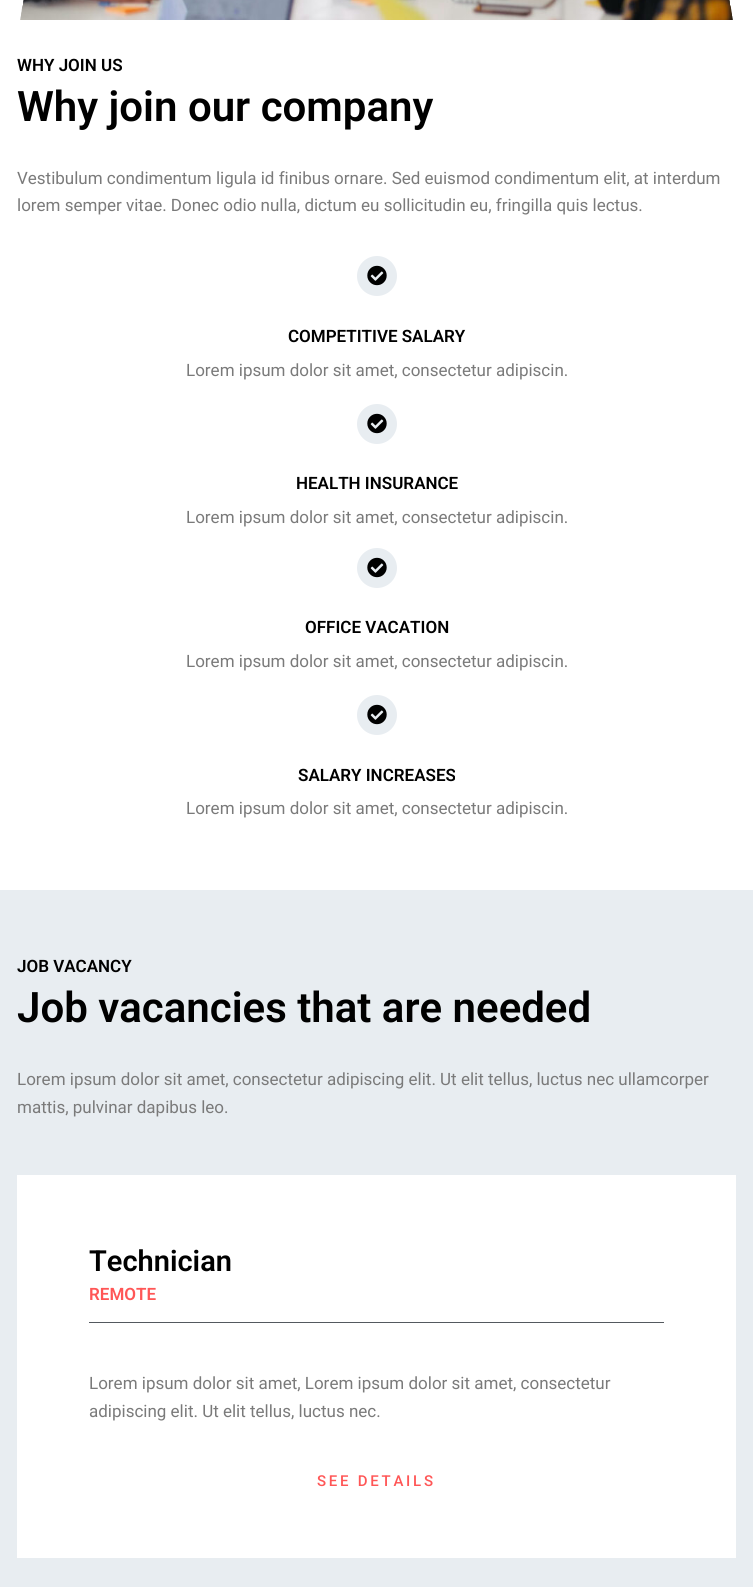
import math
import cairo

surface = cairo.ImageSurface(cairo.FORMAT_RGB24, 753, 1587)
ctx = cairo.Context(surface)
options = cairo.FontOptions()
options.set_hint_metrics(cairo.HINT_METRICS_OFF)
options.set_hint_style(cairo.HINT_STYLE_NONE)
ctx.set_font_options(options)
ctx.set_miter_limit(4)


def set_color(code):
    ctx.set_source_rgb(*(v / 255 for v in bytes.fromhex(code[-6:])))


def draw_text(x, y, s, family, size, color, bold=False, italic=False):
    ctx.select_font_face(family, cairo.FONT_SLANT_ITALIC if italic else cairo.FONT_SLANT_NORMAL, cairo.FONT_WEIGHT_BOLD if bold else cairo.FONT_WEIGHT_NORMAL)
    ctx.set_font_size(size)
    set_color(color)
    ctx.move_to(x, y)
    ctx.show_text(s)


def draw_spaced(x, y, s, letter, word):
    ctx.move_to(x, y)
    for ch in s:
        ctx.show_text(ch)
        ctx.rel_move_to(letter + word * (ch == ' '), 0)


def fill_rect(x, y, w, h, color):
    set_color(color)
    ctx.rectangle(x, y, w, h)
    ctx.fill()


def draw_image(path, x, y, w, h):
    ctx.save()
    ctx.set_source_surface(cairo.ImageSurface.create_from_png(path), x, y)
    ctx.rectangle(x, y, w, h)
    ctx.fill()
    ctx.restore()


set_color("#ffffff")
ctx.paint()
draw_image("assets/img1.png", 20, 0, 713, 20)
draw_image("assets/img2.png", 20, 0, 713, 20)
draw_text(17, 71, "WHY JOIN US", "Roboto SemiBold", 17, "#000000")
draw_text(17, 121, "Why join our company", "Roboto SemiBold", 42, "#000000")
draw_text(17, 184, "Vestibulum condimentum ligula id finibus ornare. Sed euismod condimentum elit, at interdum", "Roboto", 17, "#7a7a7a")
draw_text(17, 211, "lorem semper vitae. Donec odio nulla, dictum eu sollicitudin eu, fringilla quis lectus.", "Roboto", 17, "#7a7a7a")
set_color("#e8edf1")
ctx.new_path()
ctx.arc(377, 276, 20, 0, 2 * math.pi)
ctx.fill()
draw_image("assets/img3.png", 367, 265, 20, 21)
draw_text(288, 342, "COMPETITIVE SALARY", "Roboto SemiBold", 17, "#000000")
draw_text(186, 376, "Lorem ipsum dolor sit amet, consectetur adipiscin.", "Roboto", 17, "#7a7a7a")
set_color("#e8edf1")
ctx.new_path()
ctx.arc(377, 424, 20, 0, 2 * math.pi)
ctx.fill()
draw_image("assets/img3.png", 367, 413, 20, 21)
draw_text(296, 489, "HEALTH INSURANCE", "Roboto SemiBold", 17, "#000000")
draw_text(186, 523, "Lorem ipsum dolor sit amet, consectetur adipiscin.", "Roboto", 17, "#7a7a7a")
set_color("#e8edf1")
ctx.new_path()
ctx.arc(377, 568, 20, 0, 2 * math.pi)
ctx.fill()
draw_image("assets/img3.png", 367, 557, 20, 21)
draw_text(305, 633, "OFFICE VACATION", "Roboto SemiBold", 17, "#000000")
draw_text(186, 667, "Lorem ipsum dolor sit amet, consectetur adipiscin.", "Roboto", 17, "#7a7a7a")
set_color("#e8edf1")
ctx.new_path()
ctx.arc(377, 715, 20, 0, 2 * math.pi)
ctx.fill()
draw_image("assets/img3.png", 367, 704, 20, 21)
draw_text(298, 781, "SALARY INCREASES", "Roboto SemiBold", 17, "#000000")
draw_text(186, 814, "Lorem ipsum dolor sit amet, consectetur adipiscin.", "Roboto", 17, "#7a7a7a")
fill_rect(0, 890, 753, 697, "#e8edf1")
draw_text(17, 972, "JOB VACANCY", "Roboto SemiBold", 17, "#000000")
draw_text(17, 1022, "Job vacancies that are needed", "Roboto SemiBold", 42, "#000000")
draw_text(17, 1085, "Lorem ipsum dolor sit amet, consectetur adipiscing elit. Ut elit tellus, luctus nec ullamcorper", "Roboto", 17, "#7a7a7a")
draw_text(17, 1113, "mattis, pulvinar dapibus leo.", "Roboto", 17, "#7a7a7a")
fill_rect(17, 1175, 719, 383, "#ffffff")
draw_text(89, 1271, "Technician", "Roboto SemiBold", 29, "#000000")
draw_text(89, 1300, "REMOTE", "Roboto SemiBold", 17, "#ff5656")
fill_rect(89, 1322, 575, 1, "#54595f")
draw_text(89, 1389, "Lorem ipsum dolor sit amet, Lorem ipsum dolor sit amet, consectetur", "Roboto", 17, "#7a7a7a")
draw_text(89, 1417, "adipiscing elit. Ut elit tellus, luctus nec.", "Roboto", 17, "#7a7a7a")
ctx.select_font_face("Roboto Medium")
ctx.set_font_size(15)
set_color("#ff5656")
draw_spaced(317, 1486, "SEE DETAILS", 2.75, 0)
surface.write_to_png("output.png")
